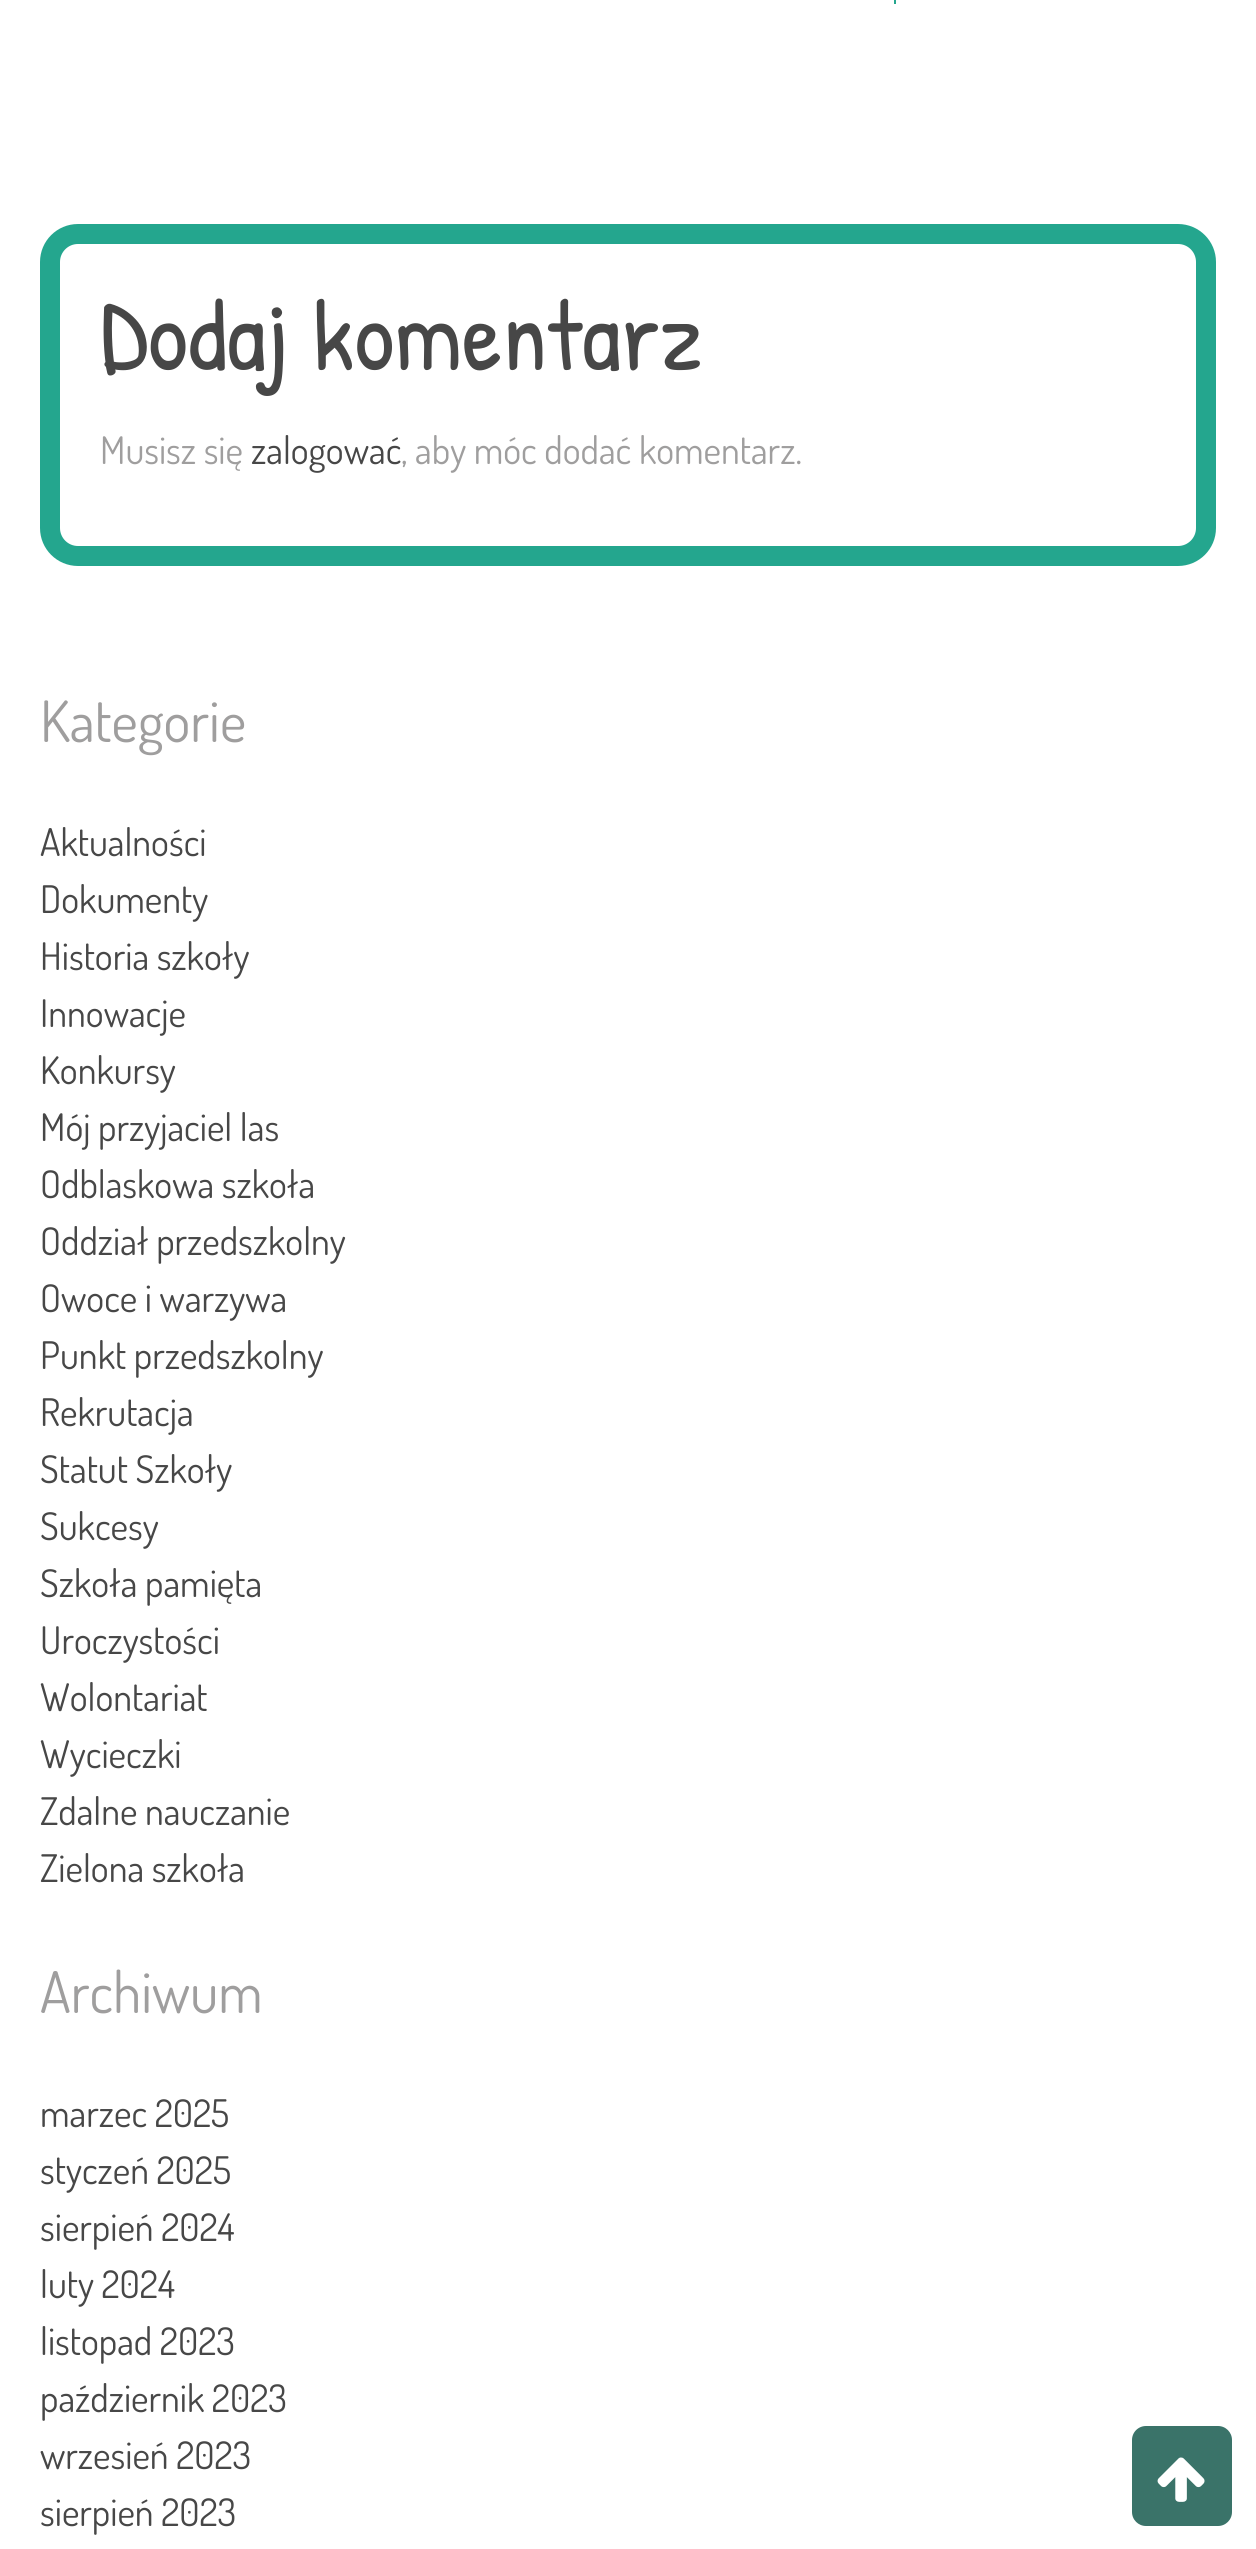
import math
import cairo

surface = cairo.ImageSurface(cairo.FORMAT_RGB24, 1256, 2549)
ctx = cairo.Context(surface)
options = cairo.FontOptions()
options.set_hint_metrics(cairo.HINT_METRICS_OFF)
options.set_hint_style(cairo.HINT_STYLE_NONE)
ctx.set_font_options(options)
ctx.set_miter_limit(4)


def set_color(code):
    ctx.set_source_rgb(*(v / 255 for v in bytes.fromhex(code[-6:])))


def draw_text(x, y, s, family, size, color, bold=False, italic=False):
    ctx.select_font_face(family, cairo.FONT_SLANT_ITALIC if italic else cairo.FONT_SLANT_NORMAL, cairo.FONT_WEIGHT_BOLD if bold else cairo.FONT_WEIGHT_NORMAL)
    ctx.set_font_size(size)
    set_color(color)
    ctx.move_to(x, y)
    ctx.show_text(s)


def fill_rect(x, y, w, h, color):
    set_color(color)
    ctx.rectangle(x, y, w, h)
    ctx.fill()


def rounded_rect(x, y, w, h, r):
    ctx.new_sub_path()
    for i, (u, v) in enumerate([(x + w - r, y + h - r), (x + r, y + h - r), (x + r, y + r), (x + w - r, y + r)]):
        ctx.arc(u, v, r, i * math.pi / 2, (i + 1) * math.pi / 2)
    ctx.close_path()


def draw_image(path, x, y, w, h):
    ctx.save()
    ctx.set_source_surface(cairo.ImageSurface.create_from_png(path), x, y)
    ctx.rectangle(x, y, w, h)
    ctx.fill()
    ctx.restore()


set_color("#ffffff")
ctx.paint()
fill_rect(894, 0, 2, 4, "#24a68e")
rounded_rect(50, 234, 1156, 322, 28)
ctx.set_line_width(20)
ctx.stroke()
draw_text(100, 370, "Dodaj komentarz", "Patrick Hand", 100, "#474747")
draw_text(100, 464, "Musisz się", "Dosis", 38, "#9f9e9e")
draw_text(251, 464, "zalogować", "Dosis", 38, "#474747")
draw_text(401, 464, ", aby móc dodać komentarz.", "Dosis", 38, "#9f9e9e")
draw_text(40, 742, "Kategorie", "Dosis", 57, "#9f9e9e")
draw_text(40, 856, "Aktualności", "Dosis", 38, "#474747")
draw_text(40, 913, "Dokumenty", "Dosis", 38, "#474747")
draw_text(40, 970, "Historia szkoły", "Dosis", 38, "#474747")
draw_text(40, 1027, "Innowacje", "Dosis", 38, "#474747")
draw_text(40, 1084, "Konkursy", "Dosis", 38, "#474747")
draw_text(40, 1141, "Mój przyjaciel las", "Dosis", 38, "#474747")
draw_text(40, 1198, "Odblaskowa szkoła", "Dosis", 38, "#474747")
draw_text(40, 1255, "Oddział przedszkolny", "Dosis", 38, "#474747")
draw_text(40, 1312, "Owoce i warzywa", "Dosis", 38, "#474747")
draw_text(40, 1369, "Punkt przedszkolny", "Dosis", 38, "#474747")
draw_text(40, 1426, "Rekrutacja", "Dosis", 38, "#474747")
draw_text(40, 1483, "Statut Szkoły", "Dosis", 38, "#474747")
draw_text(40, 1540, "Sukcesy", "Dosis", 38, "#474747")
draw_text(40, 1597, "Szkoła pamięta", "Dosis", 38, "#474747")
draw_text(40, 1654, "Uroczystości", "Dosis", 38, "#474747")
draw_text(40, 1711, "Wolontariat", "Dosis", 38, "#474747")
draw_text(40, 1768, "Wycieczki", "Dosis", 38, "#474747")
draw_text(40, 1825, "Zdalne nauczanie", "Dosis", 38, "#474747")
draw_text(40, 1882, "Zielona szkoła", "Dosis", 38, "#474747")
draw_text(40, 2013, "Archiwum", "Dosis", 57, "#9f9e9e")
draw_text(40, 2127, "marzec 2025", "Dosis", 38, "#474747")
draw_text(40, 2184, "styczeń 2025", "Dosis", 38, "#474747")
draw_text(40, 2241, "sierpień 2024", "Dosis", 38, "#474747")
draw_text(40, 2298, "luty 2024", "Dosis", 38, "#474747")
draw_text(40, 2355, "listopad 2023", "Dosis", 38, "#474747")
draw_text(40, 2412, "październik 2023", "Dosis", 38, "#474747")
draw_text(40, 2469, "wrzesień 2023", "Dosis", 38, "#474747")
draw_text(40, 2526, "sierpień 2023", "Dosis", 38, "#474747")
set_color("#3a7369")
rounded_rect(1130, 2424, 104, 104, 16)
ctx.fill_preserve()
set_color("#ffffff")
ctx.set_line_width(4)
ctx.stroke()
draw_image("assets/img1.png", 1157, 2457, 48, 45)
surface.write_to_png("output.png")
